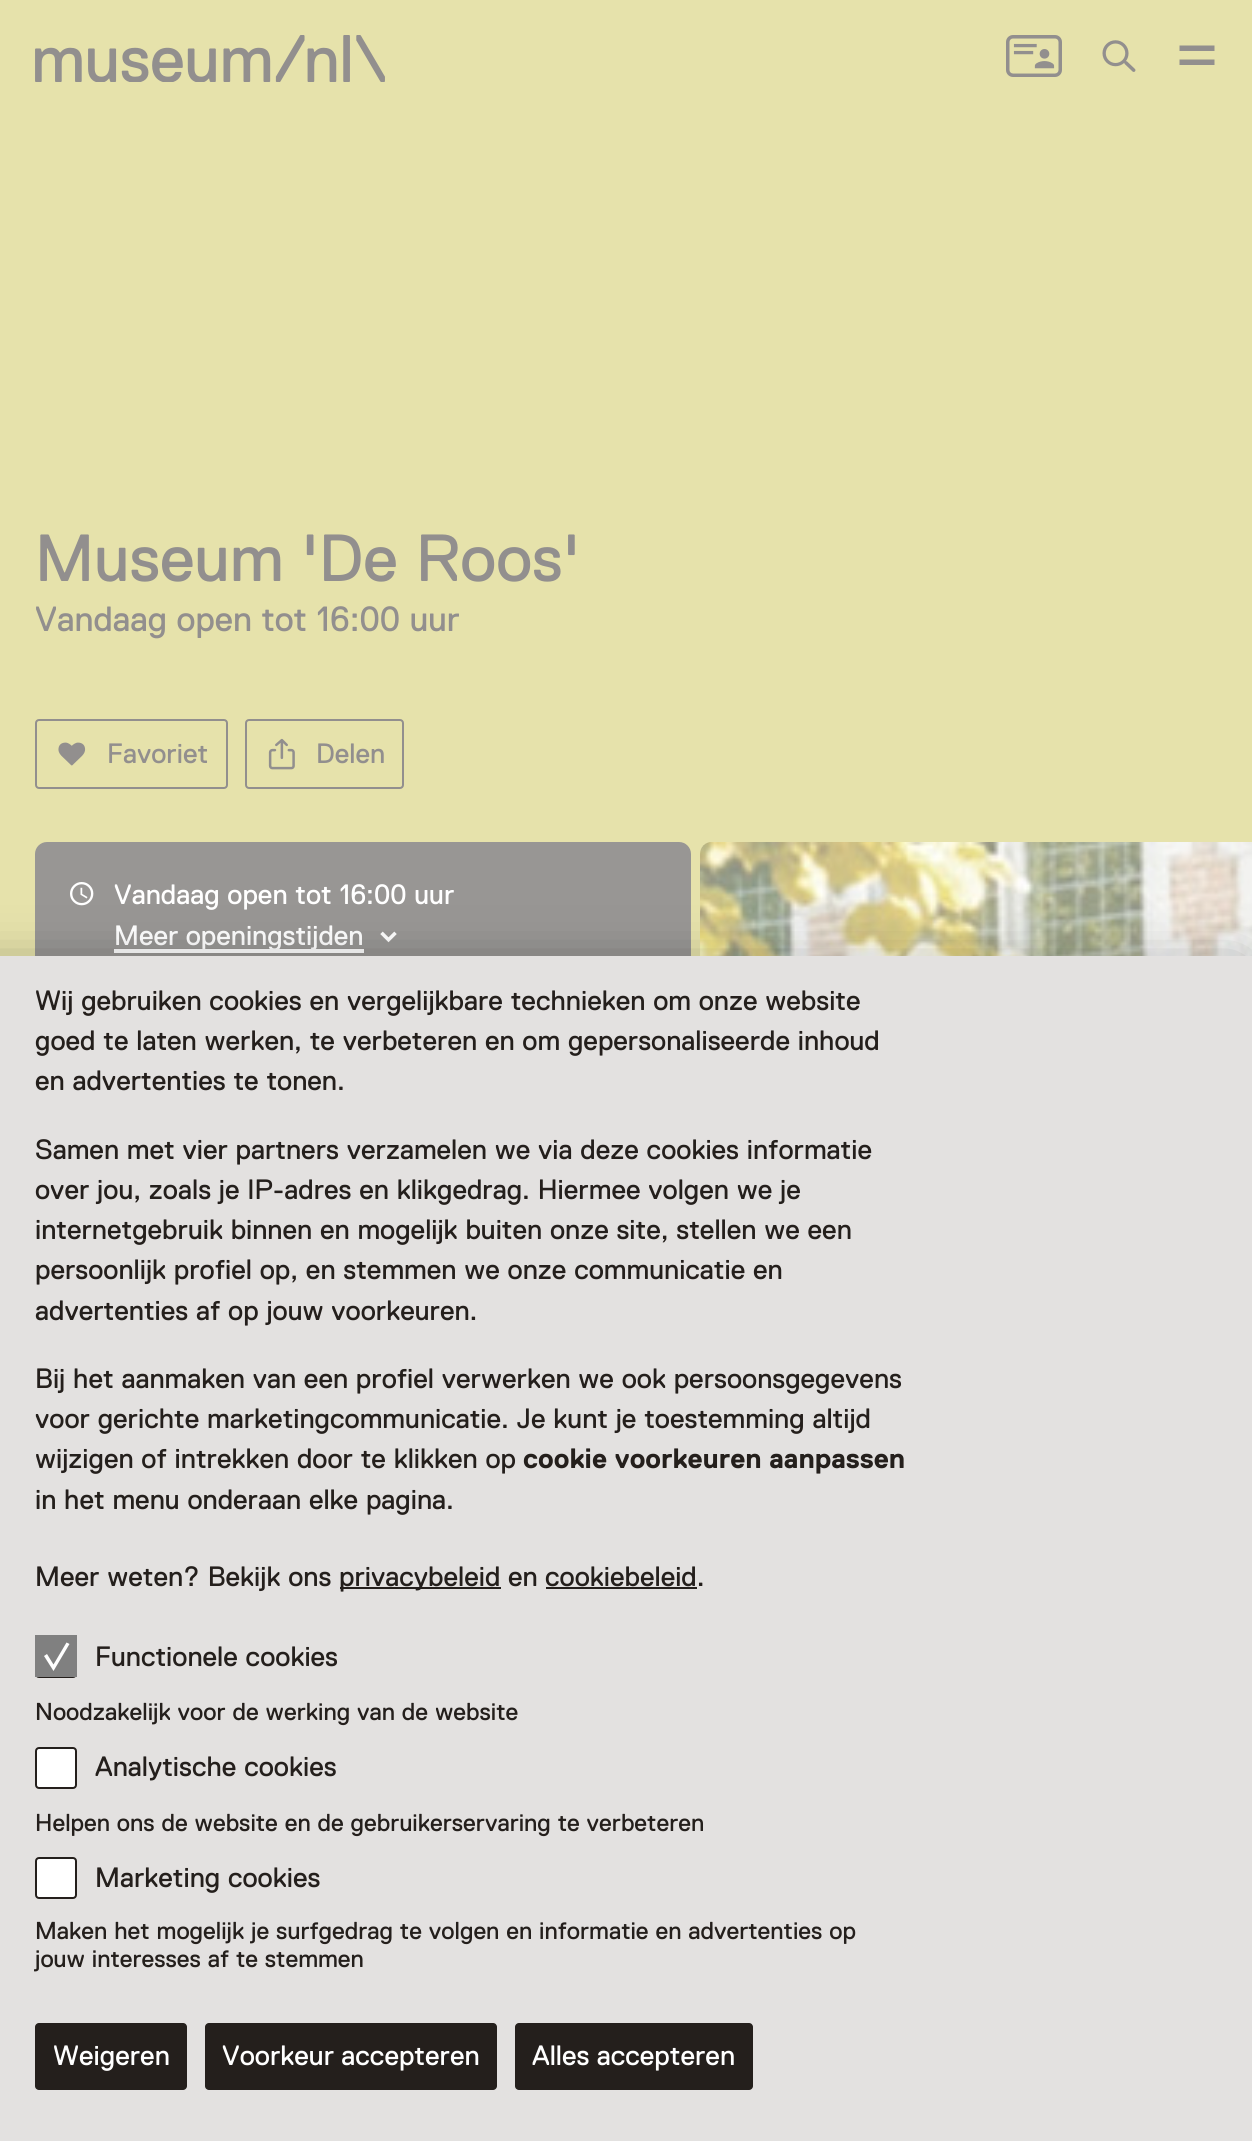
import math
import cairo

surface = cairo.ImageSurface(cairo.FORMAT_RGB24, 1252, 2141)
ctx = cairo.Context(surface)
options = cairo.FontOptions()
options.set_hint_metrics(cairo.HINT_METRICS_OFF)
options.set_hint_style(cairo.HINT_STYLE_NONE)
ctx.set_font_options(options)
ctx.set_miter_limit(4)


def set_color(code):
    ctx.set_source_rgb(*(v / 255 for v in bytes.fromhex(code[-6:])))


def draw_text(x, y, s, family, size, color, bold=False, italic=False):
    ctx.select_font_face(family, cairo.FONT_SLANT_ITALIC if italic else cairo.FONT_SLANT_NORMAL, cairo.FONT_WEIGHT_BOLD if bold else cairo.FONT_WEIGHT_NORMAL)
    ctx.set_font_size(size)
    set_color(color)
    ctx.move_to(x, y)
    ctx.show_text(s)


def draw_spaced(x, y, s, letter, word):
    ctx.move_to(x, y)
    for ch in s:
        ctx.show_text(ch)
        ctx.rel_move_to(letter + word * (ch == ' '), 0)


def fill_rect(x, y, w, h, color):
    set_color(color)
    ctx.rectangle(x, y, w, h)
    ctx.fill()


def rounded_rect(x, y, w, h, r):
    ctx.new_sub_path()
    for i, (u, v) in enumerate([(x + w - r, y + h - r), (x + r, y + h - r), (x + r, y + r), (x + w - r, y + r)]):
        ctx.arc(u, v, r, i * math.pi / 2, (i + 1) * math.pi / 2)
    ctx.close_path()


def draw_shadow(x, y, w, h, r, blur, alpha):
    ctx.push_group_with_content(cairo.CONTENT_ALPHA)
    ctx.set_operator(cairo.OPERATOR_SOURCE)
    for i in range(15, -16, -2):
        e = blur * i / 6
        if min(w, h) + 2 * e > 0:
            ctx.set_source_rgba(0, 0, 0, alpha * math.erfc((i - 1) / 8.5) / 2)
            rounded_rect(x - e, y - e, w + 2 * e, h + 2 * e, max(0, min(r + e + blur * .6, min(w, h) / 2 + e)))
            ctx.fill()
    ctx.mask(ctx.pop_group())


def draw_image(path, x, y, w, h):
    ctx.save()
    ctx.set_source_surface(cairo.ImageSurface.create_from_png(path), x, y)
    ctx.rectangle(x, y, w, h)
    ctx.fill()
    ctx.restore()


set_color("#e6e2ab")
ctx.paint()
draw_image("assets/img1.png", 35, 35, 350, 47)
draw_image("assets/img2.png", 1006, 35, 56, 42)
draw_image("assets/img3.png", 1102, 40, 34, 32)
set_color("#928f8e")
ctx.new_path()
ctx.move_to(1214.5, 59.5)
ctx.line_to(1214.5, 65)
ctx.line_to(1179.5, 65)
ctx.line_to(1179.5, 59.5)
ctx.close_path()
ctx.move_to(1214.5, 45.5)
ctx.line_to(1214.5, 51)
ctx.line_to(1179.5, 51)
ctx.line_to(1179.5, 45.5)
ctx.close_path()
ctx.fill()
ctx.select_font_face("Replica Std")
ctx.set_font_size(66.5)
draw_spaced(35, 581, "Museum 'De Roos'", 0, 0.5)
ctx.set_font_size(35)
draw_spaced(35, 631, "Vandaag open tot 16:00 uur", 0, 0.5)
rounded_rect(36, 720, 191, 68, 3)
ctx.stroke()
draw_image("assets/img4.png", 58, 742, 28, 24)
draw_text(107, 763, "Favoriet", "Replica Std", 28, "#928f8e")
rounded_rect(246, 720, 157, 68, 3)
ctx.stroke()
draw_image("assets/img5.png", 268, 738, 27, 32)
draw_text(316, 763, "Delen", "Replica Std", 28, "#928f8e")
set_color("#989694")
rounded_rect(35, 842, 656, 409, 12)
ctx.fill()
draw_image("assets/img6.png", 70, 882, 24, 24)
set_color("#ffffff")
draw_spaced(114, 904, "Vandaag open tot 16:00 uur", 0, 0.5)
draw_text(114, 945, "Meer openingstijden", "Replica Std", 28, "#ffffff")
draw_image("assets/img7.png", 380, 931, 17, 12)
fill_rect(114, 949, 250, 4, "#ffffff")
draw_image("assets/img8.png", 700, 842, 552, 114)
set_color("#000000")
draw_shadow(-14, 970, 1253, 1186, 0, 26, 0.4)
fill_rect(0, 956, 1252, 1185, "#e3e1e0")
set_color("#241f1c")
draw_spaced(35, 1010, "Wij gebruiken cookies en vergelijkbare technieken om onze website", 0, 0.5)
draw_spaced(35, 1050, "goed te laten werken, te verbeteren en om gepersonaliseerde inhoud", 0, 0.5)
draw_spaced(35, 1090, "en advertenties te tonen.", 0, 0.5)
draw_spaced(35, 1159, "Samen met vier partners verzamelen we via deze cookies informatie", 0, 0.5)
draw_spaced(35, 1199, "over jou, zoals je IP-adres en klikgedrag. Hiermee volgen we je", 0, 0.5)
draw_spaced(35, 1239, "internetgebruik binnen en mogelijk buiten onze site, stellen we een", 0, 0.5)
draw_spaced(35, 1279, "persoonlijk profiel op, en stemmen we onze communicatie en", 0, 0.5)
draw_spaced(35, 1320, "advertenties af op jouw voorkeuren.", 0, 0.5)
draw_spaced(35, 1388, "Bij het aanmaken van een profiel verwerken we ook persoonsgegevens", 0, 0.5)
draw_spaced(35, 1428, "voor gerichte marketingcommunicatie. Je kunt je toestemming altijd", 0, 0.5)
draw_spaced(35, 1468, "wijzigen of intrekken door te klikken op", 0, 0.5)
ctx.select_font_face("Replica Std", cairo.FONT_SLANT_NORMAL, cairo.FONT_WEIGHT_BOLD)
draw_spaced(523, 1468, "cookie voorkeuren aanpassen", 0, 0.5)
ctx.select_font_face("Replica Std")
draw_spaced(35, 1509, "in het menu onderaan elke pagina.", 0, 0.5)
draw_spaced(35, 1586, "Meer weten? Bekijk ons", 0, 0.5)
fill_rect(340, 1587, 161, 2, "#241f1c")
draw_text(339, 1586, "privacybeleid", "Replica Std", 28, "#241f1c")
draw_text(508, 1586, "en", "Replica Std", 28, "#241f1c")
draw_text(545, 1586, "cookiebeleid.", "Replica Std", 28, "#241f1c")
fill_rect(546, 1587, 151, 2, "#241f1c")
rounded_rect(36, 1637, 40, 40, 3)
ctx.stroke()
fill_rect(35, 1635, 42, 42, "#808080")
set_color("#ffffff")
ctx.new_path()
ctx.move_to(53.5, 1671)
ctx.line_to(44, 1656)
ctx.line_to(47, 1654)
ctx.line_to(53.5, 1664.5)
ctx.line_to(66.5, 1642.5)
ctx.line_to(69.5, 1644)
ctx.close_path()
ctx.fill()
set_color("#241f1c")
draw_spaced(95, 1666, "Functionele cookies", 0, 0.5)
ctx.set_font_size(24.5)
draw_spaced(35, 1720, "Noodzakelijk voor de werking van de website", 0, 0.5)
set_color("#ffffff")
rounded_rect(36, 1748, 40, 40, 3)
ctx.fill_preserve()
set_color("#241f1c")
ctx.stroke()
ctx.set_font_size(28)
draw_spaced(95, 1776, "Analytische cookies", 0, 0.5)
ctx.set_font_size(24.5)
draw_spaced(35, 1831, "Helpen ons de website en de gebruikerservaring te verbeteren", 0, 0.5)
set_color("#ffffff")
rounded_rect(36, 1858, 40, 40, 3)
ctx.fill_preserve()
set_color("#241f1c")
ctx.stroke()
ctx.set_font_size(28)
draw_spaced(95, 1887, "Marketing cookies", 0, 0.5)
ctx.set_font_size(24.5)
draw_spaced(35, 1939, "Maken het mogelijk je surfgedrag te volgen en informatie en advertenties op", 0, 0.5)
draw_spaced(35, 1967, "jouw interesses af te stemmen", 0, 0.5)
rounded_rect(35, 2023, 152, 67, 4)
ctx.fill()
draw_text(53, 2065, "Weigeren", "Replica Std", 28, "#ffffff")
set_color("#241f1c")
rounded_rect(205, 2023, 292, 67, 4)
ctx.fill()
draw_text(222, 2065, "Voorkeur accepteren", "Replica Std", 28, "#ffffff")
set_color("#241f1c")
rounded_rect(515, 2023, 238, 67, 4)
ctx.fill()
draw_text(532, 2065, "Alles accepteren", "Replica Std", 28, "#ffffff")
surface.write_to_png("output.png")
